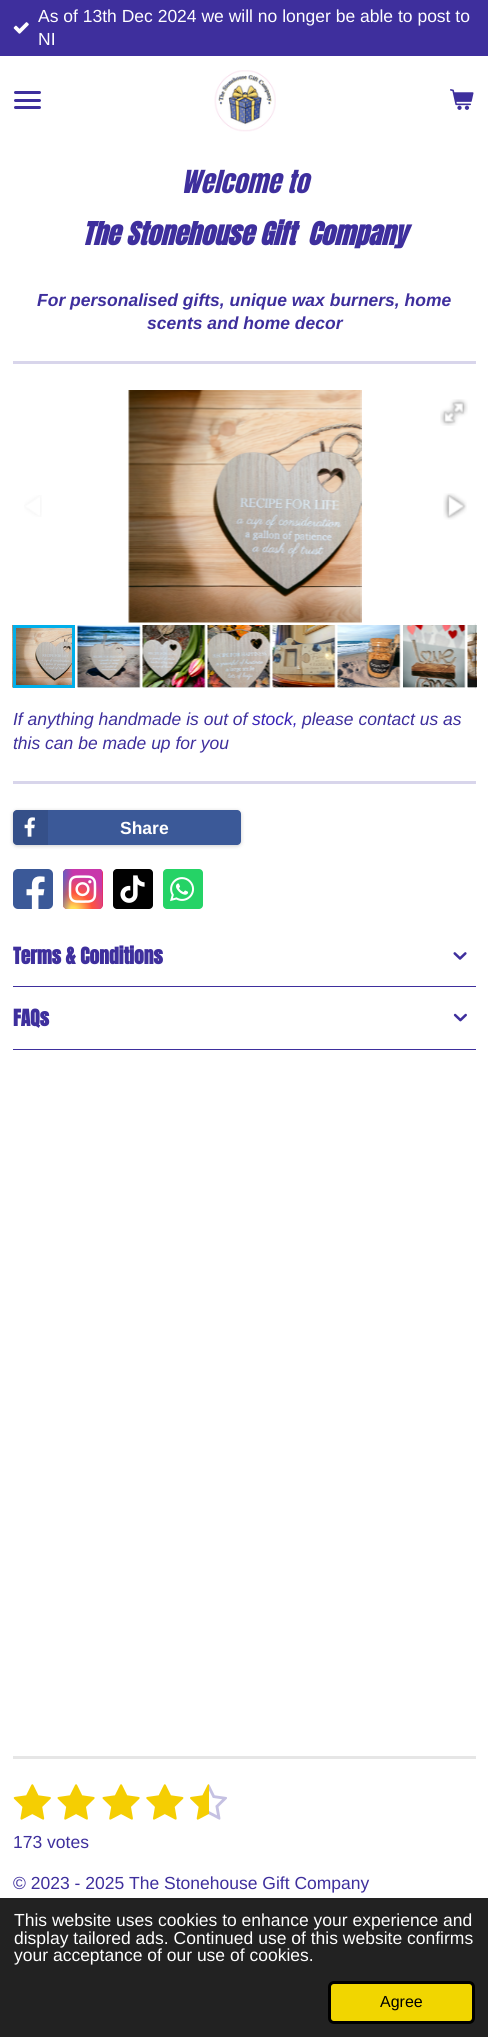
import math
import cairo

surface = cairo.ImageSurface(cairo.FORMAT_RGB24, 488, 2037)
ctx = cairo.Context(surface)
options = cairo.FontOptions()
options.set_hint_metrics(cairo.HINT_METRICS_OFF)
options.set_hint_style(cairo.HINT_STYLE_NONE)
ctx.set_font_options(options)
ctx.set_miter_limit(4)


def set_color(code):
    ctx.set_source_rgb(*(v / 255 for v in bytes.fromhex(code[-6:])))


def draw_text(x, y, s, family, size, color, bold=False, italic=False):
    ctx.select_font_face(family, cairo.FONT_SLANT_ITALIC if italic else cairo.FONT_SLANT_NORMAL, cairo.FONT_WEIGHT_BOLD if bold else cairo.FONT_WEIGHT_NORMAL)
    ctx.set_font_size(size)
    set_color(color)
    ctx.move_to(x, y)
    ctx.show_text(s)


def fill_rect(x, y, w, h, color):
    set_color(color)
    ctx.rectangle(x, y, w, h)
    ctx.fill()


def rounded_rect(x, y, w, h, r):
    ctx.new_sub_path()
    for i, (u, v) in enumerate([(x + w - r, y + h - r), (x + r, y + h - r), (x + r, y + r), (x + w - r, y + r)]):
        ctx.arc(u, v, r, i * math.pi / 2, (i + 1) * math.pi / 2)
    ctx.close_path()


def draw_shadow(x, y, w, h, r, blur, alpha):
    ctx.push_group_with_content(cairo.CONTENT_ALPHA)
    ctx.set_operator(cairo.OPERATOR_SOURCE)
    for i in range(15, -16, -2):
        e = blur * i / 6
        if min(w, h) + 2 * e > 0:
            ctx.set_source_rgba(0, 0, 0, alpha * math.erfc((i - 1) / 8.5) / 2)
            rounded_rect(x - e, y - e, w + 2 * e, h + 2 * e, max(0, min(r + e + blur * .6, min(w, h) / 2 + e)))
            ctx.fill()
    ctx.mask(ctx.pop_group())


def draw_image(path, x, y, w, h):
    ctx.save()
    ctx.set_source_surface(cairo.ImageSurface.create_from_png(path), x, y)
    ctx.rectangle(x, y, w, h)
    ctx.fill()
    ctx.restore()


set_color("#ffffff")
ctx.paint()
fill_rect(0, 0, 488, 56, "#3e2f9d")
draw_image("assets/img1.png", 13, 22, 16, 12)
draw_text(38, 22, "As of 13th Dec 2024 we will no longer be able to post to", "Liberation Sans", 17.5, "#ffffff")
draw_text(38, 45, "NI", "Liberation Sans", 17.5, "#ffffff")
set_color("#3e2f9d")
rounded_rect(14, 99, 27, 3, 1.5)
ctx.fill()
rounded_rect(14, 91, 27, 3, 1.5)
ctx.fill()
rounded_rect(14, 106, 27, 3, 1.5)
ctx.fill()
draw_image("assets/img2.png", 214, 70, 62, 62)
draw_image("assets/img3.png", 450, 89, 24, 21)
draw_text(181, 193, "Welcome to", "Anton", 27, "#3e2f9d", italic=True)
draw_text(82, 245, "The Stonehouse Gift  Company", "Anton", 27, "#3e2f9d", bold=True, italic=True)
draw_text(37, 306, "For personalised gifts, unique wax burners, home", "Liberation Sans", 17.5, "#3e2f9d", bold=True, italic=True)
draw_text(147, 329, "scents and home decor", "Liberation Sans", 17.5, "#3e2f9d", bold=True, italic=True)
fill_rect(13, 361, 463, 3, "#d8d5eb")
draw_image("assets/img4.png", 128, 390, 234, 233)
draw_image("assets/img5.png", 440, 399, 28, 27)
draw_image("assets/img6.png", 24, 495, 18, 22)
draw_image("assets/img7.png", 443, 493, 24, 27)
fill_rect(468, 687, 8, 1, "#e6e6e6")
draw_image("assets/img15.png", 467, 625, 10, 63)
gradient = cairo.RadialGradient(0, 0, 0, 0, 0, 1)
gradient.set_matrix(cairo.Matrix(1 / 6.2, 0, 0, 1 / 34, -1 * 476 / 6.2, -1 * 656 / 34))
gradient.add_color_stop_rgba(0, 0, 0, 0, 0.4)
gradient.add_color_stop_rgba(1, 0, 0, 0, 0)
ctx.set_source(gradient)
ctx.rectangle(470, 623, 6, 67)
ctx.fill()
gradient = cairo.LinearGradient(476, 623, 476, 690)
gradient.add_color_stop_rgba(0, 0, 0, 0, 0)
gradient.add_color_stop_rgba(0.25, 0, 0, 0, 0.2)
gradient.add_color_stop_rgba(0.75, 0, 0, 0, 0.3)
gradient.add_color_stop_rgba(1, 0, 0, 0, 0)
ctx.set_source(gradient)
ctx.rectangle(475, 623, 1, 67)
ctx.fill()
draw_image("assets/img8.png", 12, 625, 60, 63)
ctx.rectangle(14.5, 626.5, 59, 60)
set_color("#00afea")
ctx.set_line_width(3)
ctx.stroke()
fill_rect(78, 625, 62, 63, "#e6e6e6")
draw_image("assets/img9.png", 77, 625, 64, 63)
fill_rect(143, 625, 62, 63, "#e6e6e6")
draw_image("assets/img10.png", 142, 625, 64, 63)
fill_rect(208, 625, 62, 63, "#e6e6e6")
draw_image("assets/img11.png", 207, 625, 64, 63)
fill_rect(273, 625, 62, 63, "#e6e6e6")
draw_image("assets/img12.png", 272, 625, 64, 63)
fill_rect(338, 625, 62, 63, "#e6e6e6")
draw_image("assets/img13.png", 337, 625, 64, 63)
fill_rect(403, 625, 62, 63, "#e6e6e6")
draw_image("assets/img14.png", 403, 625, 63, 63)
draw_text(13, 725, "If anything handmade is out of", "Liberation Sans", 17.5, "#3e2f9d", italic=True)
draw_text(252, 725, "stock,", "Liberation Sans", 17.5, "#3923b8", italic=True)
draw_text(302, 725, "please contact us as", "Liberation Sans", 17.5, "#3e2f9d", italic=True)
draw_text(13, 749, "this can be made up for you", "Liberation Sans", 17.5, "#3e2f9d", italic=True)
fill_rect(13, 781, 463, 3, "#d8d5eb")
set_color("#000000")
draw_shadow(13, 811, 228, 35, 4, 2, 0.2)
set_color("#3b5998")
rounded_rect(13, 810, 228, 35, 4)
ctx.fill()
ctx.set_source_rgba(0, 0, 0, 0.1)
ctx.new_path()
ctx.move_to(17, 810)
ctx.line_to(48, 810)
ctx.line_to(48, 845)
ctx.line_to(17, 845)
ctx.curve_to(15, 845, 13, 843, 13, 841)
ctx.line_to(13, 814)
ctx.curve_to(13, 812, 15, 810, 17, 810)
ctx.close_path()
ctx.fill()
draw_image("assets/img16.png", 24, 817, 11, 20)
draw_text(120, 834, "Share", "Liberation Sans", 17.5, "#ffffff", bold=True)
set_color("#3b5998")
rounded_rect(13, 869, 40, 40, 5)
ctx.fill()
draw_image("assets/img17.png", 26, 876, 19, 33)
set_color("#e1306c")
rounded_rect(63, 869, 40, 40, 4)
ctx.fill()
ctx.save()
rounded_rect(63, 869, 40, 40, 4)
ctx.clip()
gradient = cairo.RadialGradient(0, 0, 0, 0, 0, 1)
gradient.set_matrix(cairo.Matrix(1 / 39, 0, 0, 1 / 36, -1 * 73 / 39, -1 * 911 / 36))
gradient.add_color_stop_rgba(0, 1, 0.867, 0.333, 1)
gradient.add_color_stop_rgba(0.1, 1, 0.867, 0.333, 1)
gradient.add_color_stop_rgba(0.5, 1, 0.329, 0.243, 1)
gradient.add_color_stop_rgba(1, 0.784, 0.216, 0.671, 1)
ctx.set_source(gradient)
ctx.new_path()
ctx.move_to(67, 869)
ctx.line_to(102, 869)
ctx.line_to(102, 909)
ctx.line_to(67, 909)
ctx.curve_to(65, 909, 63, 907, 63, 905)
ctx.line_to(63, 873)
ctx.curve_to(63, 871, 65, 869, 67, 869)
ctx.close_path()
ctx.fill()
gradient = cairo.RadialGradient(0, 0, 0, 0, 0, 1)
gradient.set_matrix(cairo.Matrix(1 / 17, 0, 0, 1 / 72, -1 * 56 / 17, -1 * 872 / 72))
gradient.add_color_stop_rgba(0, 0.216, 0.443, 0.784, 1)
gradient.add_color_stop_rgba(0.13, 0.216, 0.443, 0.784, 1)
gradient.add_color_stop_rgba(1, 0.216, 0.443, 0.784, 0)
ctx.set_source(gradient)
ctx.new_path()
ctx.move_to(67, 869)
ctx.line_to(102, 869)
ctx.line_to(102, 909)
ctx.line_to(67, 909)
ctx.curve_to(65, 909, 63, 907, 63, 905)
ctx.line_to(63, 873)
ctx.curve_to(63, 871, 65, 869, 67, 869)
ctx.close_path()
ctx.fill()
ctx.restore()
draw_image("assets/img18.png", 68, 875, 29, 28)
set_color("#010101")
rounded_rect(113, 869, 40, 40, 4)
ctx.fill()
draw_image("assets/img19.png", 120, 875, 25, 28)
set_color("#25d366")
rounded_rect(163, 869, 40, 40, 4)
ctx.fill()
draw_image("assets/img20.png", 170, 877, 25, 25)
fill_rect(13, 986, 463, 1, "#3e2f9d")
draw_text(13, 964, "Terms & Conditions", "Anton", 19.5, "#3e2f9d", bold=True)
draw_image("assets/img21.png", 453, 952, 14, 8)
fill_rect(13, 1049, 463, 1, "#3e2f9d")
draw_text(13, 1026, "FAQs", "Anton", 19.5, "#3e2f9d", bold=True)
draw_image("assets/img22.png", 453, 1013, 14, 9)
fill_rect(13, 1756, 463, 3, "#e6e6e6")
draw_image("assets/img23.png", 13, 1784, 38, 36)
draw_image("assets/img24.png", 57, 1784, 38, 36)
draw_image("assets/img24.png", 102, 1784, 38, 36)
draw_image("assets/img25.png", 146, 1784, 38, 36)
draw_image("assets/img26.png", 190, 1784, 19, 36)
draw_image("assets/img27.png", 209, 1784, 18, 36)
draw_text(13, 1848, "173 votes", "Liberation Sans", 17.5, "#3e2f9d")
draw_text(13, 1889, "© 2023 - 2025 The Stonehouse Gift Company", "Liberation Sans", 17.5, "#3e2f9d")
fill_rect(0, 1898, 488, 139, "#222222")
draw_text(14, 1926, "This website uses cookies to enhance your experience and", "Liberation Sans", 17.5, "#ffffff")
draw_text(14, 1944, "display tailored ads. Continued use of this website confirms", "Liberation Sans", 17.5, "#ffffff")
draw_text(14, 1961, "your acceptance of our use of cookies.", "Liberation Sans", 17.5, "#ffffff")
set_color("#f1d600")
rounded_rect(329.5, 1982.5, 144, 40, 4.5)
ctx.fill_preserve()
set_color("#000000")
ctx.stroke()
draw_text(380, 2007, "Agree", "Liberation Sans", 16, "#000000")
surface.write_to_png("output.png")
